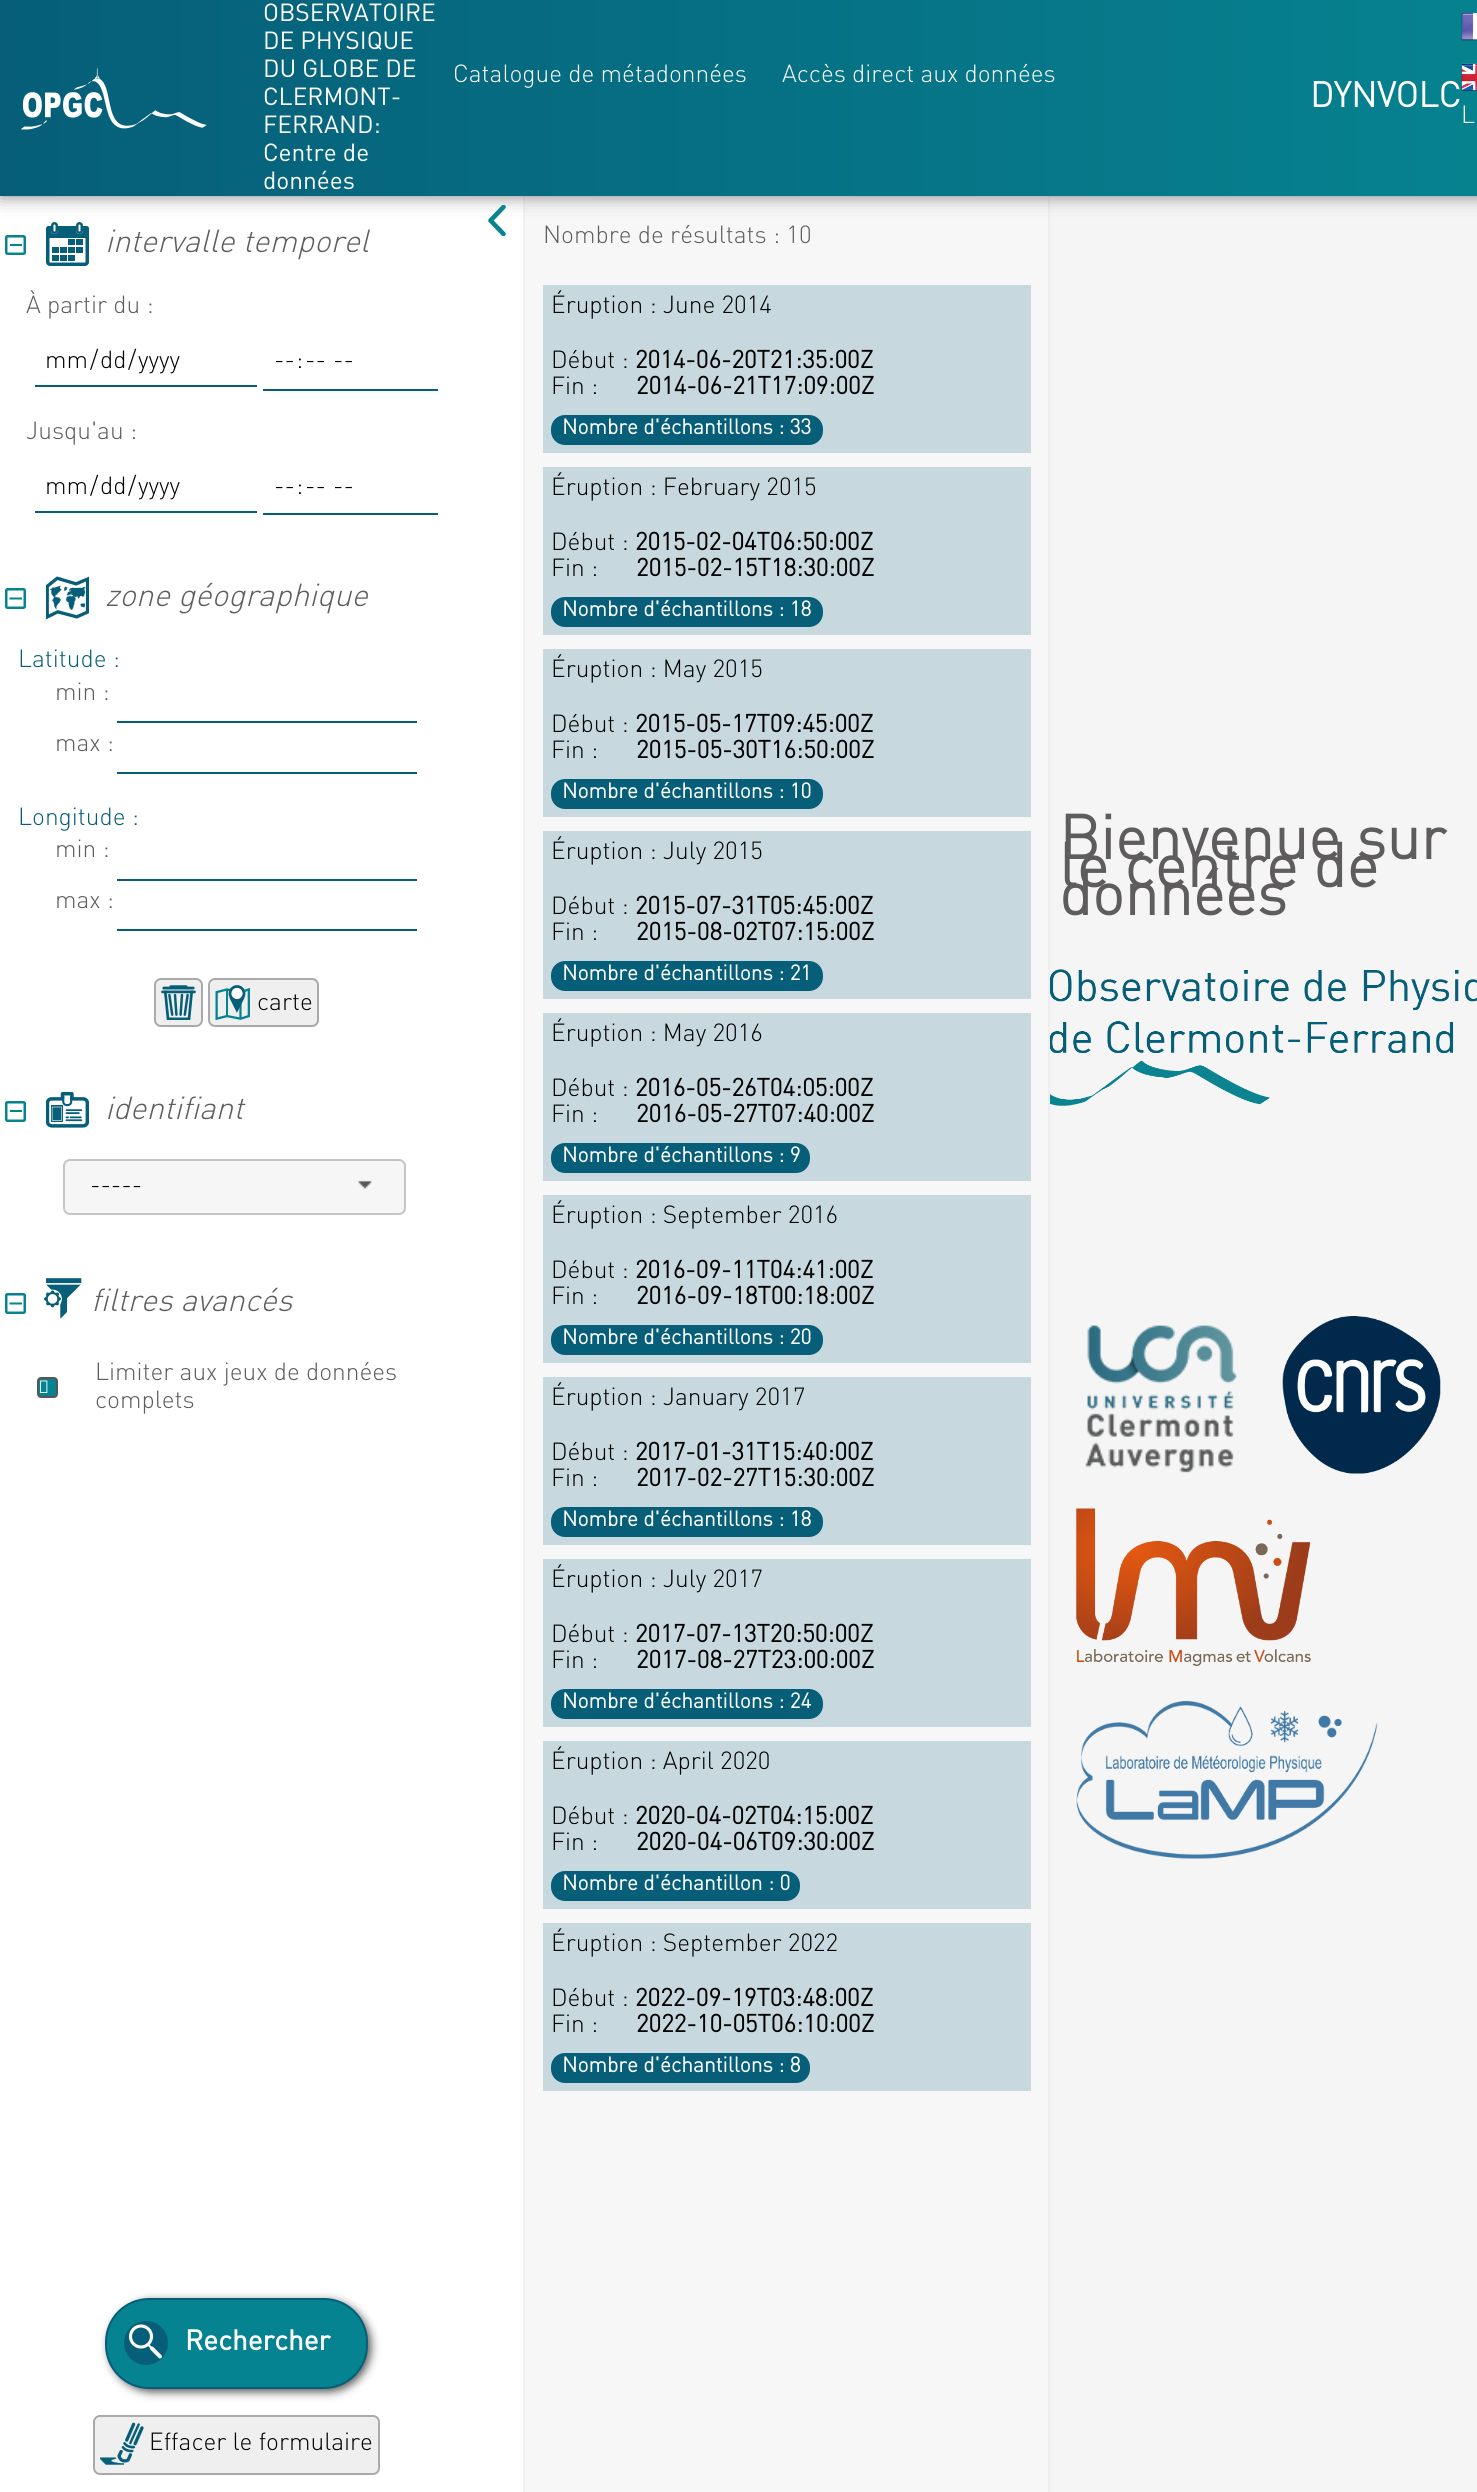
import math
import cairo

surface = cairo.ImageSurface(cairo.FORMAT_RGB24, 1477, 2492)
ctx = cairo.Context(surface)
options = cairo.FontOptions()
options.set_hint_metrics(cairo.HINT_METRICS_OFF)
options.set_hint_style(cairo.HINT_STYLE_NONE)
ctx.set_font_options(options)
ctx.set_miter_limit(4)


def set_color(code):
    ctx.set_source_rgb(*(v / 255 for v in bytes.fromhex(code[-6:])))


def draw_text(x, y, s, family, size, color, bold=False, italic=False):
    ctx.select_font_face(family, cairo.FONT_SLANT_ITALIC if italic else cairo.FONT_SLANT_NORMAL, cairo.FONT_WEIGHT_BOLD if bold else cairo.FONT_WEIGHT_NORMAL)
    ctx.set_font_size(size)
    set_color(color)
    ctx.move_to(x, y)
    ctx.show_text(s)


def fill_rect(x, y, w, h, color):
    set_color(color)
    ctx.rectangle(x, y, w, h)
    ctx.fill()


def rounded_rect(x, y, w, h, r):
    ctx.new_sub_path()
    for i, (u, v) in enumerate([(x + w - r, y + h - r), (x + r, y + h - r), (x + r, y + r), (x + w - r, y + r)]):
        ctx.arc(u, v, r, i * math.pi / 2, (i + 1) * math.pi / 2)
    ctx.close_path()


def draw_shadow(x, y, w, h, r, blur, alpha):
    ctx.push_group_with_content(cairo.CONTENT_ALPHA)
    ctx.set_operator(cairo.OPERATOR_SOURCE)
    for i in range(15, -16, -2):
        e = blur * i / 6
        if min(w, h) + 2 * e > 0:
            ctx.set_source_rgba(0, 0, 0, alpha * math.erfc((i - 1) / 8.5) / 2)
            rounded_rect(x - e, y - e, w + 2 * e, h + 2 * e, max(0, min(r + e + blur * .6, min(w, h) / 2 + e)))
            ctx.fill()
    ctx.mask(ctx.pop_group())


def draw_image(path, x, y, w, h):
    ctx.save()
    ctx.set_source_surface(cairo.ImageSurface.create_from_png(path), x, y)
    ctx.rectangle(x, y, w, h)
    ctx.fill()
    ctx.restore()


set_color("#ffffff")
ctx.paint()
draw_image("assets/img4.png", 46, 222, 43, 44)
fill_rect(523, 196, 2, 2296, "#f1f1f1")
ctx.save()
ctx.rectangle(481, 205, 32, 31)
ctx.clip()
ctx.new_path()
ctx.move_to(503.5, 207)
ctx.line_to(490.5, 220.5)
ctx.line_to(503.5, 234)
set_color("#068390")
ctx.set_line_width(4.6)
ctx.set_line_cap(cairo.LINE_CAP_ROUND)
ctx.set_line_join(cairo.LINE_JOIN_ROUND)
ctx.stroke()
ctx.restore()
fill_rect(525, 196, 523, 2296, "#f7f7f7")
fill_rect(1048, 196, 2, 2296, "#eeeeee")
fill_rect(1050, 196, 427, 2296, "#f5f5f5")
set_color("#808080")
draw_shadow(0, 0, 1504, 196, 0, 9, 1)
gradient = cairo.LinearGradient(0, 98, 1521, 98)
gradient.add_color_stop_rgba(0, 0.024, 0.369, 0.471, 1)
gradient.add_color_stop_rgba(1, 0.024, 0.514, 0.565, 1)
ctx.set_source(gradient)
ctx.rectangle(0, 0, 1477, 196)
ctx.fill()
draw_image("assets/img1.png", 21, 68, 186, 62)
draw_text(263, 21, "OBSERVATOIRE", "DIN", 24.5, "#ffffff")
draw_text(263, 49, "DE PHYSIQUE", "DIN", 24.5, "#ffffff")
draw_text(263, 77, "DU GLOBE DE", "DIN", 24.5, "#ffffff")
draw_text(263, 105, "CLERMONT-", "DIN", 24.5, "#ffffff")
draw_text(263, 133, "FERRAND:", "DIN", 24.5, "#ffffff")
draw_text(263, 161, "Centre de", "DIN", 24.5, "#ffffff")
draw_text(263, 189, "données", "DIN", 24.5, "#ffffff")
draw_text(453, 82, "Catalogue de métadonnées", "DIN Light", 24.5, "#ffffff")
draw_text(782, 82, "Accès direct aux données", "DIN Light", 24.5, "#ffffff")
draw_text(1310, 107, "DYNVOLC", "DIN", 35, "#ffffff", bold=True)
draw_image("assets/img2.png", 1461, 12, 16, 29)
draw_image("assets/img3.png", 1461, 63, 16, 29)
draw_text(1461, 123, "L", "DIN Light", 24.5, "#ffffff")
rounded_rect(6.25, 236.25, 18.5, 17.5, 1.25)
set_color("#068390")
ctx.set_line_width(2.5)
ctx.stroke()
draw_text(105, 252, "intervalle temporel", "DIN Light", 31.5, "#5e5c5c", italic=True)
fill_rect(10, 244, 12, 2, "#068390")
draw_text(26, 313, "À partir du :", "DIN Light", 24.5, "#5e5c5c")
fill_rect(35, 385, 222, 2, "#065e78")
draw_text(45, 368, "mm", "DIN Light", 24.5, "#000000")
draw_text(90, 368, "/", "DIN Light", 24.5, "#000000")
draw_text(100, 368, "dd", "DIN Light", 24.5, "#000000")
draw_text(128, 368, "/", "DIN Light", 24.5, "#000000")
draw_text(138, 368, "yyyy", "DIN Light", 24.5, "#000000")
fill_rect(263, 389, 175, 2, "#065e78")
draw_text(274, 368, "--", "DIN Light", 24.5, "#000000")
draw_text(296, 368, ":", "DIN Light", 24.5, "#000000")
draw_text(305, 368, "--", "DIN Light", 24.5, "#000000")
draw_text(333, 368, "--", "DIN Light", 24.5, "#000000")
draw_text(26, 439, "Jusqu'au :", "DIN Light", 24.5, "#5e5c5c")
fill_rect(35, 511, 222, 2, "#065e78")
draw_text(45, 494, "mm", "DIN Light", 24.5, "#000000")
draw_text(90, 494, "/", "DIN Light", 24.5, "#000000")
draw_text(100, 494, "dd", "DIN Light", 24.5, "#000000")
draw_text(128, 494, "/", "DIN Light", 24.5, "#000000")
draw_text(138, 494, "yyyy", "DIN Light", 24.5, "#000000")
fill_rect(263, 513, 175, 2, "#065e78")
draw_text(274, 494, "--", "DIN Light", 24.5, "#000000")
draw_text(296, 494, ":", "DIN Light", 24.5, "#000000")
draw_text(305, 494, "--", "DIN Light", 24.5, "#000000")
draw_text(333, 494, "--", "DIN Light", 24.5, "#000000")
rounded_rect(6.25, 589.25, 18.5, 18.5, 1.25)
set_color("#068390")
ctx.stroke()
draw_image("assets/img5.png", 46, 576, 43, 44)
draw_text(105, 606, "zone géographique", "DIN Light", 31.5, "#5e5c5c", italic=True)
ctx.new_path()
ctx.move_to(9.5, 598.5)
ctx.line_to(22, 598.5)
set_color("#068390")
ctx.set_line_width(2)
ctx.stroke()
draw_text(18, 667, "Latitude :", "DIN Light", 24.5, "#065e78")
draw_text(55, 700, "min :", "DIN Light", 24.5, "#5e5c5c")
fill_rect(117, 721, 300, 2, "#065e78")
draw_text(55, 751, "max :", "DIN Light", 24.5, "#5e5c5c")
fill_rect(117, 772, 300, 2, "#065e78")
draw_text(18, 825, "Longitude :", "DIN Light", 24.5, "#065e78")
draw_text(55, 857, "min :", "DIN Light", 24.5, "#5e5c5c")
fill_rect(117, 879, 300, 2, "#065e78")
draw_text(55, 908, "max :", "DIN Light", 24.5, "#5e5c5c")
fill_rect(117, 929, 300, 2, "#065e78")
set_color("#efefef")
rounded_rect(155, 979, 47, 47, 6)
ctx.fill_preserve()
set_color("#aaaaaa")
ctx.stroke()
draw_image("assets/img6.png", 161, 985, 35, 35)
set_color("#efefef")
rounded_rect(209, 979, 109, 47, 6)
ctx.fill_preserve()
set_color("#aaaaaa")
ctx.stroke()
draw_image("assets/img7.png", 215, 985, 35, 35)
draw_text(257, 1010, "carte", "DIN Light", 24.5, "#000000")
rounded_rect(6.25, 1102.25, 18.5, 18.5, 1.25)
set_color("#068390")
ctx.set_line_width(2.5)
ctx.stroke()
draw_image("assets/img8.png", 46, 1091, 43, 37)
draw_text(105, 1119, "identifiant", "DIN Light", 31.5, "#5e5c5c", italic=True)
fill_rect(10, 1110, 12, 2, "#068390")
set_color("#f6f6f6")
rounded_rect(64, 1160, 341, 54, 6)
ctx.fill_preserve()
set_color("#c5c5c5")
ctx.set_line_width(2)
ctx.stroke()
draw_text(90, 1193, "-----", "DIN Light", 24.5, "#000000")
draw_image("assets/img9.png", 358, 1180, 14, 9)
rounded_rect(6.25, 1294.25, 18.5, 18.5, 1.25)
set_color("#068390")
ctx.set_line_width(2.5)
ctx.stroke()
draw_image("assets/img10.png", 44, 1278, 38, 41)
draw_text(91, 1311, "filtres avancés", "DIN Light", 31.5, "#5e5c5c", italic=True)
ctx.new_path()
ctx.move_to(9.5, 1303.5)
ctx.line_to(22, 1303.5)
set_color("#068390")
ctx.set_line_width(2)
ctx.stroke()
rounded_rect(38, 1378, 19, 19, 3)
ctx.fill_preserve()
set_color("#575756")
ctx.stroke()
draw_image("assets/img11.png", 40, 1380, 8, 13)
draw_text(95, 1380, "Limiter aux jeux de données", "DIN Light", 24.5, "#5e5c5c")
draw_text(95, 1408, "complets", "DIN Light", 24.5, "#5e5c5c")
set_color("#575756")
draw_shadow(109, 2301, 262, 91, 44, 4.5, 1)
set_color("#068390")
rounded_rect(106, 2299, 261, 89, 43)
ctx.fill_preserve()
set_color("#065e78")
ctx.stroke()
ctx.arc(146, 2343, 22, 0, 2 * math.pi)
ctx.fill()
ctx.arc(141, 2336.5, 10.5, 0, 2 * math.pi)
set_color("#ffffff")
ctx.set_line_width(3.1)
ctx.stroke()
draw_text(185, 2350, "Rechercher", "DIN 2", 28, "#ffffff", bold=True)
ctx.new_path()
ctx.move_to(147.5, 2344)
ctx.line_to(159, 2355.5)
ctx.set_line_width(2)
ctx.stroke()
ctx.new_path()
ctx.move_to(152, 2348.5)
ctx.line_to(160, 2356.5)
ctx.set_line_width(3.9)
ctx.set_line_cap(cairo.LINE_CAP_ROUND)
ctx.stroke()
set_color("#efefef")
rounded_rect(94, 2416, 285, 58, 6)
ctx.fill_preserve()
set_color("#aaaaaa")
ctx.set_line_width(2)
ctx.set_line_cap(cairo.LINE_CAP_BUTT)
ctx.stroke()
draw_image("assets/img12.png", 100, 2422, 44, 43)
draw_text(149, 2450, "Effacer le formulaire", "DIN Light", 24.5, "#000000")
draw_text(543, 243, "Nombre de résultats : 10", "DIN Light", 24.5, "#5e5c5c")
fill_rect(543, 285, 488, 168, "#c7d9de")
draw_text(551, 313, "Éruption : June 2014", "DIN Light", 24.5, "#000000")
draw_text(551, 368, "Début :", "DIN Light", 24.5, "#000000")
draw_text(635, 368, "2014-06-20T21:35:00Z", "DIN", 24.5, "#000000", bold=True)
draw_text(551, 394, "Fin :", "DIN Light", 24.5, "#000000")
draw_text(636, 394, "2014-06-21T17:09:00Z", "DIN", 24.5, "#000000", bold=True)
set_color("#065e78")
rounded_rect(552, 416, 270, 28, 13)
ctx.fill_preserve()
ctx.stroke()
draw_text(562, 434, "Nombre d'échantillons : 33", "DIN", 21, "#ffffff", bold=True)
fill_rect(543, 467, 488, 168, "#c7d9de")
draw_text(551, 495, "Éruption : February 2015", "DIN Light", 24.5, "#000000")
draw_text(551, 550, "Début :", "DIN Light", 24.5, "#000000")
draw_text(635, 550, "2015-02-04T06:50:00Z", "DIN", 24.5, "#000000", bold=True)
draw_text(551, 576, "Fin :", "DIN Light", 24.5, "#000000")
draw_text(636, 576, "2015-02-15T18:30:00Z", "DIN", 24.5, "#000000", bold=True)
set_color("#065e78")
rounded_rect(552, 598, 270, 28, 13)
ctx.fill_preserve()
ctx.stroke()
draw_text(562, 616, "Nombre d'échantillons : 18", "DIN", 21, "#ffffff", bold=True)
fill_rect(543, 649, 488, 168, "#c7d9de")
draw_text(551, 677, "Éruption : May 2015", "DIN Light", 24.5, "#000000")
draw_text(551, 732, "Début :", "DIN Light", 24.5, "#000000")
draw_text(635, 732, "2015-05-17T09:45:00Z", "DIN", 24.5, "#000000", bold=True)
draw_text(551, 758, "Fin :", "DIN Light", 24.5, "#000000")
draw_text(636, 758, "2015-05-30T16:50:00Z", "DIN", 24.5, "#000000", bold=True)
set_color("#065e78")
rounded_rect(552, 780, 270, 28, 13)
ctx.fill_preserve()
ctx.stroke()
draw_text(562, 798, "Nombre d'échantillons : 10", "DIN", 21, "#ffffff", bold=True)
fill_rect(543, 831, 488, 168, "#c7d9de")
draw_text(551, 859, "Éruption : July 2015", "DIN Light", 24.5, "#000000")
draw_text(551, 914, "Début :", "DIN Light", 24.5, "#000000")
draw_text(635, 914, "2015-07-31T05:45:00Z", "DIN", 24.5, "#000000", bold=True)
draw_text(551, 940, "Fin :", "DIN Light", 24.5, "#000000")
draw_text(636, 940, "2015-08-02T07:15:00Z", "DIN", 24.5, "#000000", bold=True)
set_color("#065e78")
rounded_rect(552, 962, 270, 28, 13)
ctx.fill_preserve()
ctx.stroke()
draw_text(562, 980, "Nombre d'échantillons : 21", "DIN", 21, "#ffffff", bold=True)
fill_rect(543, 1013, 488, 168, "#c7d9de")
draw_text(551, 1041, "Éruption : May 2016", "DIN Light", 24.5, "#000000")
draw_text(551, 1096, "Début :", "DIN Light", 24.5, "#000000")
draw_text(635, 1096, "2016-05-26T04:05:00Z", "DIN", 24.5, "#000000", bold=True)
draw_text(551, 1122, "Fin :", "DIN Light", 24.5, "#000000")
draw_text(636, 1122, "2016-05-27T07:40:00Z", "DIN", 24.5, "#000000", bold=True)
set_color("#065e78")
rounded_rect(552, 1144, 257, 28, 13)
ctx.fill_preserve()
ctx.stroke()
draw_text(562, 1162, "Nombre d'échantillons : 9", "DIN", 21, "#ffffff", bold=True)
fill_rect(543, 1195, 488, 168, "#c7d9de")
draw_text(551, 1223, "Éruption : September 2016", "DIN Light", 24.5, "#000000")
draw_text(551, 1278, "Début :", "DIN Light", 24.5, "#000000")
draw_text(635, 1278, "2016-09-11T04:41:00Z", "DIN", 24.5, "#000000", bold=True)
draw_text(551, 1304, "Fin :", "DIN Light", 24.5, "#000000")
draw_text(636, 1304, "2016-09-18T00:18:00Z", "DIN", 24.5, "#000000", bold=True)
set_color("#065e78")
rounded_rect(552, 1326, 270, 28, 13)
ctx.fill_preserve()
ctx.stroke()
draw_text(562, 1344, "Nombre d'échantillons : 20", "DIN", 21, "#ffffff", bold=True)
fill_rect(543, 1377, 488, 168, "#c7d9de")
draw_text(551, 1405, "Éruption : January 2017", "DIN Light", 24.5, "#000000")
draw_text(551, 1460, "Début :", "DIN Light", 24.5, "#000000")
draw_text(635, 1460, "2017-01-31T15:40:00Z", "DIN", 24.5, "#000000", bold=True)
draw_text(551, 1486, "Fin :", "DIN Light", 24.5, "#000000")
draw_text(636, 1486, "2017-02-27T15:30:00Z", "DIN", 24.5, "#000000", bold=True)
set_color("#065e78")
rounded_rect(552, 1508, 270, 28, 13)
ctx.fill_preserve()
ctx.stroke()
draw_text(562, 1526, "Nombre d'échantillons : 18", "DIN", 21, "#ffffff", bold=True)
fill_rect(543, 1559, 488, 168, "#c7d9de")
draw_text(551, 1587, "Éruption : July 2017", "DIN Light", 24.5, "#000000")
draw_text(551, 1642, "Début :", "DIN Light", 24.5, "#000000")
draw_text(635, 1642, "2017-07-13T20:50:00Z", "DIN", 24.5, "#000000", bold=True)
draw_text(551, 1668, "Fin :", "DIN Light", 24.5, "#000000")
draw_text(636, 1668, "2017-08-27T23:00:00Z", "DIN", 24.5, "#000000", bold=True)
set_color("#065e78")
rounded_rect(552, 1690, 270, 28, 13)
ctx.fill_preserve()
ctx.stroke()
draw_text(562, 1708, "Nombre d'échantillons : 24", "DIN", 21, "#ffffff", bold=True)
fill_rect(543, 1741, 488, 168, "#c7d9de")
draw_text(551, 1769, "Éruption : April 2020", "DIN Light", 24.5, "#000000")
draw_text(551, 1824, "Début :", "DIN Light", 24.5, "#000000")
draw_text(635, 1824, "2020-04-02T04:15:00Z", "DIN", 24.5, "#000000", bold=True)
draw_text(551, 1850, "Fin :", "DIN Light", 24.5, "#000000")
draw_text(636, 1850, "2020-04-06T09:30:00Z", "DIN", 24.5, "#000000", bold=True)
set_color("#065e78")
rounded_rect(552, 1872, 247, 28, 13)
ctx.fill_preserve()
ctx.stroke()
draw_text(562, 1890, "Nombre d'échantillon : 0", "DIN", 21, "#ffffff", bold=True)
fill_rect(543, 1923, 488, 168, "#c7d9de")
draw_text(551, 1951, "Éruption : September 2022", "DIN Light", 24.5, "#000000")
draw_text(551, 2006, "Début :", "DIN Light", 24.5, "#000000")
draw_text(635, 2006, "2022-09-19T03:48:00Z", "DIN", 24.5, "#000000", bold=True)
draw_text(551, 2032, "Fin :", "DIN Light", 24.5, "#000000")
draw_text(636, 2032, "2022-10-05T06:10:00Z", "DIN", 24.5, "#000000", bold=True)
set_color("#065e78")
rounded_rect(552, 2054, 257, 28, 13)
ctx.fill_preserve()
ctx.stroke()
draw_text(562, 2072, "Nombre d'échantillons : 8", "DIN", 21, "#ffffff", bold=True)
draw_text(1059, 859, "Bienvenue sur", "DIN", 61.25, "#5e5c5c", bold=True)
draw_text(1059, 887, "le centre de", "DIN", 61.25, "#5e5c5c", bold=True)
draw_text(1059, 915, "données", "DIN", 61.25, "#5e5c5c", bold=True)
draw_image("assets/img13.png", 1050, 969, 427, 137)
draw_image("assets/img14.png", 1085, 1325, 152, 148)
draw_image("assets/img15.png", 1282, 1316, 159, 158)
draw_image("assets/img16.png", 1076, 1508, 235, 158)
draw_image("assets/img17.png", 1076, 1701, 302, 158)
surface.write_to_png("output.png")
